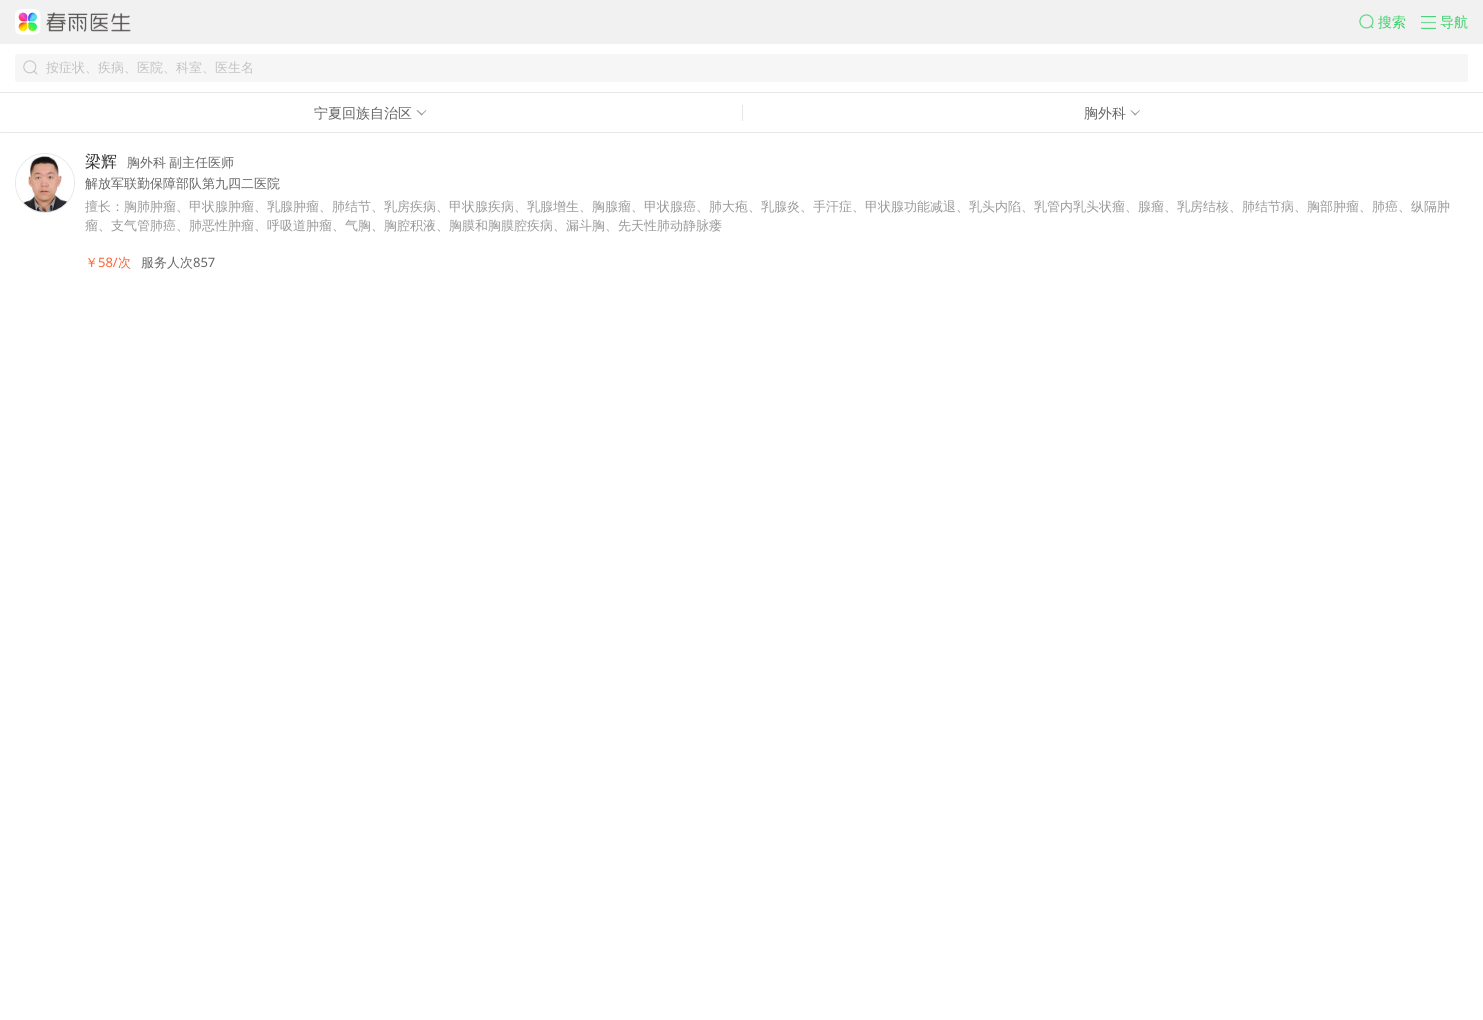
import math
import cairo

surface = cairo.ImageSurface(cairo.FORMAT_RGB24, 1483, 1020)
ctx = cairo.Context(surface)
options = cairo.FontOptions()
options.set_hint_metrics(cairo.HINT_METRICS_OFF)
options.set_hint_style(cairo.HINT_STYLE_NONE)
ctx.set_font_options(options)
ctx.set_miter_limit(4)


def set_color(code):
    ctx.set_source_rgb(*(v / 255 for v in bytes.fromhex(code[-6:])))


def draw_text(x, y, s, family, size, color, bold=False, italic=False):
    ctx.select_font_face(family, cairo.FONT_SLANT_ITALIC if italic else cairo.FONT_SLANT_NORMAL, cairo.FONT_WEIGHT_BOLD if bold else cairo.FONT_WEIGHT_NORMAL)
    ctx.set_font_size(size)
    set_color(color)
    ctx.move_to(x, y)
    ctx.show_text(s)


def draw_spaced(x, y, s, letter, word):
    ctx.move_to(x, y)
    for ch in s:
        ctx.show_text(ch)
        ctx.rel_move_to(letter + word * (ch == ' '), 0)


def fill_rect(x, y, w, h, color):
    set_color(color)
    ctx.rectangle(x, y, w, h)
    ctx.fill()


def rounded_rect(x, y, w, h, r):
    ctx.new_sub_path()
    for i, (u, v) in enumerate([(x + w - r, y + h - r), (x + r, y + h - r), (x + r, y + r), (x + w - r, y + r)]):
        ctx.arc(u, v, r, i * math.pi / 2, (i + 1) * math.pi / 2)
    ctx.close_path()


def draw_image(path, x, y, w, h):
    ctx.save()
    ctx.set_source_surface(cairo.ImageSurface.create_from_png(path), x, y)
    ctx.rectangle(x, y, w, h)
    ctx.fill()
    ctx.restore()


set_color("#ffffff")
ctx.paint()
fill_rect(0, 0, 1483, 44, "#f1f1f1")
draw_image("assets/img1.png", 15, 9, 116, 26)
draw_image("assets/img2.png", 1359, 14, 15, 15)
draw_text(1378, 27, "搜索", "WenQuanYi Zen Hei Medium", 14, "#39d167")
draw_image("assets/img3.png", 1421, 16, 15, 13)
draw_text(1440, 27, "导航", "WenQuanYi Zen Hei Medium", 14, "#39d167")
set_color("#f6f6f6")
rounded_rect(15, 54, 1453, 28, 2)
ctx.fill()
draw_image("assets/img4.png", 23, 60, 15, 15)
draw_text(46, 72, "按症状、疾病、医院、科室、医生名", "WenQuanYi Zen Hei Medium", 13, "#c2c2c2")
fill_rect(0, 92, 1483, 1, "#e7e7e7")
draw_text(314, 118, "宁夏回族自治区", "WenQuanYi Zen Hei Medium", 14, "#666666")
set_color("#979797")
ctx.new_path()
ctx.move_to(421, 114.5)
ctx.line_to(426, 110)
ctx.line_to(426.5, 110.5)
ctx.line_to(421.5, 115.5)
ctx.close_path()
ctx.fill()
ctx.new_path()
ctx.move_to(416.5, 110.5)
ctx.line_to(417.5, 110)
ctx.line_to(422.5, 114.5)
ctx.line_to(421.5, 115.5)
ctx.close_path()
ctx.fill()
fill_rect(742, 105, 1, 16, "#e7e7e7")
draw_text(1084, 118, "胸外科", "WenQuanYi Zen Hei Medium", 14, "#666666")
set_color("#979797")
ctx.new_path()
ctx.move_to(1134.5, 114.5)
ctx.line_to(1139.5, 110)
ctx.line_to(1140, 110.5)
ctx.line_to(1135, 115.5)
ctx.close_path()
ctx.fill()
ctx.new_path()
ctx.move_to(1130.5, 110.5)
ctx.line_to(1131, 110)
ctx.line_to(1136, 114.5)
ctx.line_to(1135, 115.5)
ctx.close_path()
ctx.fill()
set_color("#e7e7e7")
rounded_rect(0, 132, 1483, 1, 0.5)
ctx.fill()
ctx.arc(45, 183, 29.5, 0, 2 * math.pi)
ctx.set_line_width(1)
ctx.stroke()
draw_image("assets/img5.png", 16, 154, 58, 58)
draw_text(85, 167, "梁辉", "WenQuanYi Zen Hei Medium", 16, "#323232")
ctx.set_font_size(13)
set_color("#666666")
draw_spaced(127, 167, "胸外科 副主任医师", 0, -1)
draw_text(85, 188, "解放军联勤保障部队第九四二医院", "WenQuanYi Zen Hei Medium", 13, "#666666")
draw_text(85, 211, "擅长：胸肺肿瘤、甲状腺肿瘤、乳腺肿瘤、肺结节、乳房疾病、甲状腺疾病、乳腺增生、胸腺瘤、甲状腺癌、肺大疱、乳腺炎、手汗症、甲状腺功能减退、乳头内陷、乳管内乳头状瘤、腺瘤、乳房结核、肺结节病、胸部肿瘤、肺癌、纵隔肿", "WenQuanYi Zen Hei Medium", 13, "#999999")
draw_text(85, 230, "瘤、支气管肺癌、肺恶性肿瘤、呼吸道肿瘤、气胸、胸腔积液、胸膜和胸膜腔疾病、漏斗胸、先天性肺动静脉瘘", "WenQuanYi Zen Hei Medium", 13, "#999999")
draw_text(85, 267, "￥", "WenQuanYi Zen Hei Medium", 13, "#ff6134")
draw_text(98, 267, "58/", "Noto Sans", 13, "#ff6134")
draw_text(118, 267, "次", "WenQuanYi Zen Hei Medium", 13, "#ff6134")
draw_text(141, 267, "服务人次", "WenQuanYi Zen Hei Medium", 13, "#666666")
draw_text(193, 267, "857", "Noto Sans", 13, "#666666")
surface.write_to_png("output.png")
